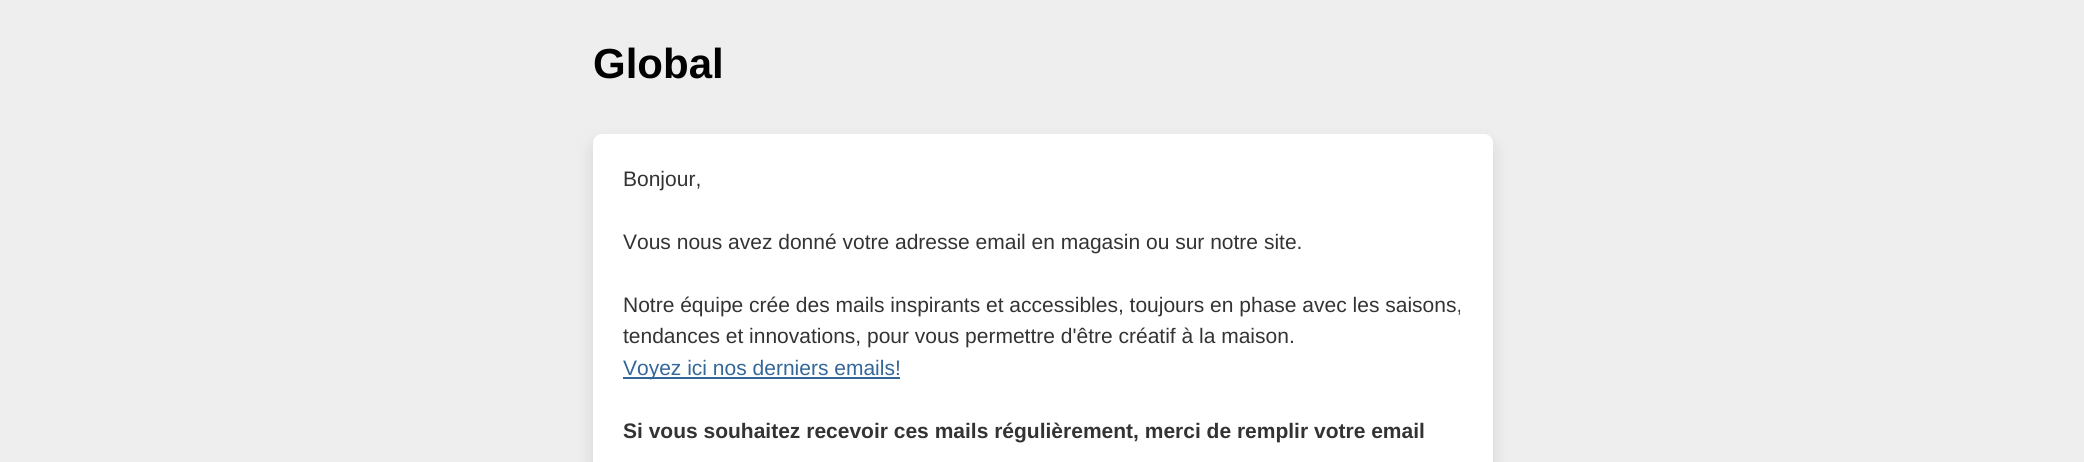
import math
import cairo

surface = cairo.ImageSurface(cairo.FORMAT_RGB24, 2084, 462)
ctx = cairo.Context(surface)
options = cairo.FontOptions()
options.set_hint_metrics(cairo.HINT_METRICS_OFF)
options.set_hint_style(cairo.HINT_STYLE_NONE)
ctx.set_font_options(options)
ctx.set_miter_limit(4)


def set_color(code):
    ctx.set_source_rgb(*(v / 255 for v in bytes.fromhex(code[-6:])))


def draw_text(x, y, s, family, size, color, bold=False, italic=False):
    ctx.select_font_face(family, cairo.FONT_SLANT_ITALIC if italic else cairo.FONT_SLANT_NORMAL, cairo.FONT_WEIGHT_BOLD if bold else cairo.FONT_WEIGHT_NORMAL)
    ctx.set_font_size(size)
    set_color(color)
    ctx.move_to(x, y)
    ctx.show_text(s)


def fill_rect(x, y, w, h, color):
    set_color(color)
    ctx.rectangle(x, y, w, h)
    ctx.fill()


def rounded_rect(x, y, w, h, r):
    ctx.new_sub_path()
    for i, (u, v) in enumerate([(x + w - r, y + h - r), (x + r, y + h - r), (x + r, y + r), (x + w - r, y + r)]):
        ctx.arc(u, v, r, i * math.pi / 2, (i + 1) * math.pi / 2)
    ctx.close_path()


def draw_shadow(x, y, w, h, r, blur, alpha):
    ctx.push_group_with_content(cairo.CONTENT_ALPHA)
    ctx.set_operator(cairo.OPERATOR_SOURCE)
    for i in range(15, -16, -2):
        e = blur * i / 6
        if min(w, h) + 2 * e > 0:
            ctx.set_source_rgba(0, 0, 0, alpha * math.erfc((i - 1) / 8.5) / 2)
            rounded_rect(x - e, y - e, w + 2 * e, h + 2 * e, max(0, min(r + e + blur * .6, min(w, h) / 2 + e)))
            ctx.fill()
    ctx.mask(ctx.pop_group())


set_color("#eeeeee")
ctx.paint()
draw_text(593, 78, "Global", "Liberation Sans", 42, "#000000", bold=True)
set_color("#0d1216")
draw_shadow(593, 143, 900, 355, 9, 9, 0.12)
set_color("#ffffff")
rounded_rect(593, 134, 900, 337, 9)
ctx.fill()
draw_text(623, 186, "Bonjour,", "Liberation Sans", 21, "#333333")
draw_text(623, 249, "Vous nous avez donné votre adresse email en magasin ou sur notre site.", "Liberation Sans", 21, "#333333")
draw_text(623, 312, "Notre équipe crée des mails inspirants et accessibles, toujours en phase avec les saisons,", "Liberation Sans", 21, "#333333")
draw_text(623, 343, "tendances et innovations, pour vous permettre d'être créatif à la maison.", "Liberation Sans", 21, "#333333")
fill_rect(623, 377, 277, 2, "#336699")
draw_text(623, 375, "Voyez ici nos derniers emails!", "Liberation Sans", 21, "#336699")
draw_text(623, 438, "Si vous souhaitez recevoir ces mails régulièrement, merci de remplir votre email", "Liberation Sans", 21, "#333333", bold=True)
surface.write_to_png("output.png")
